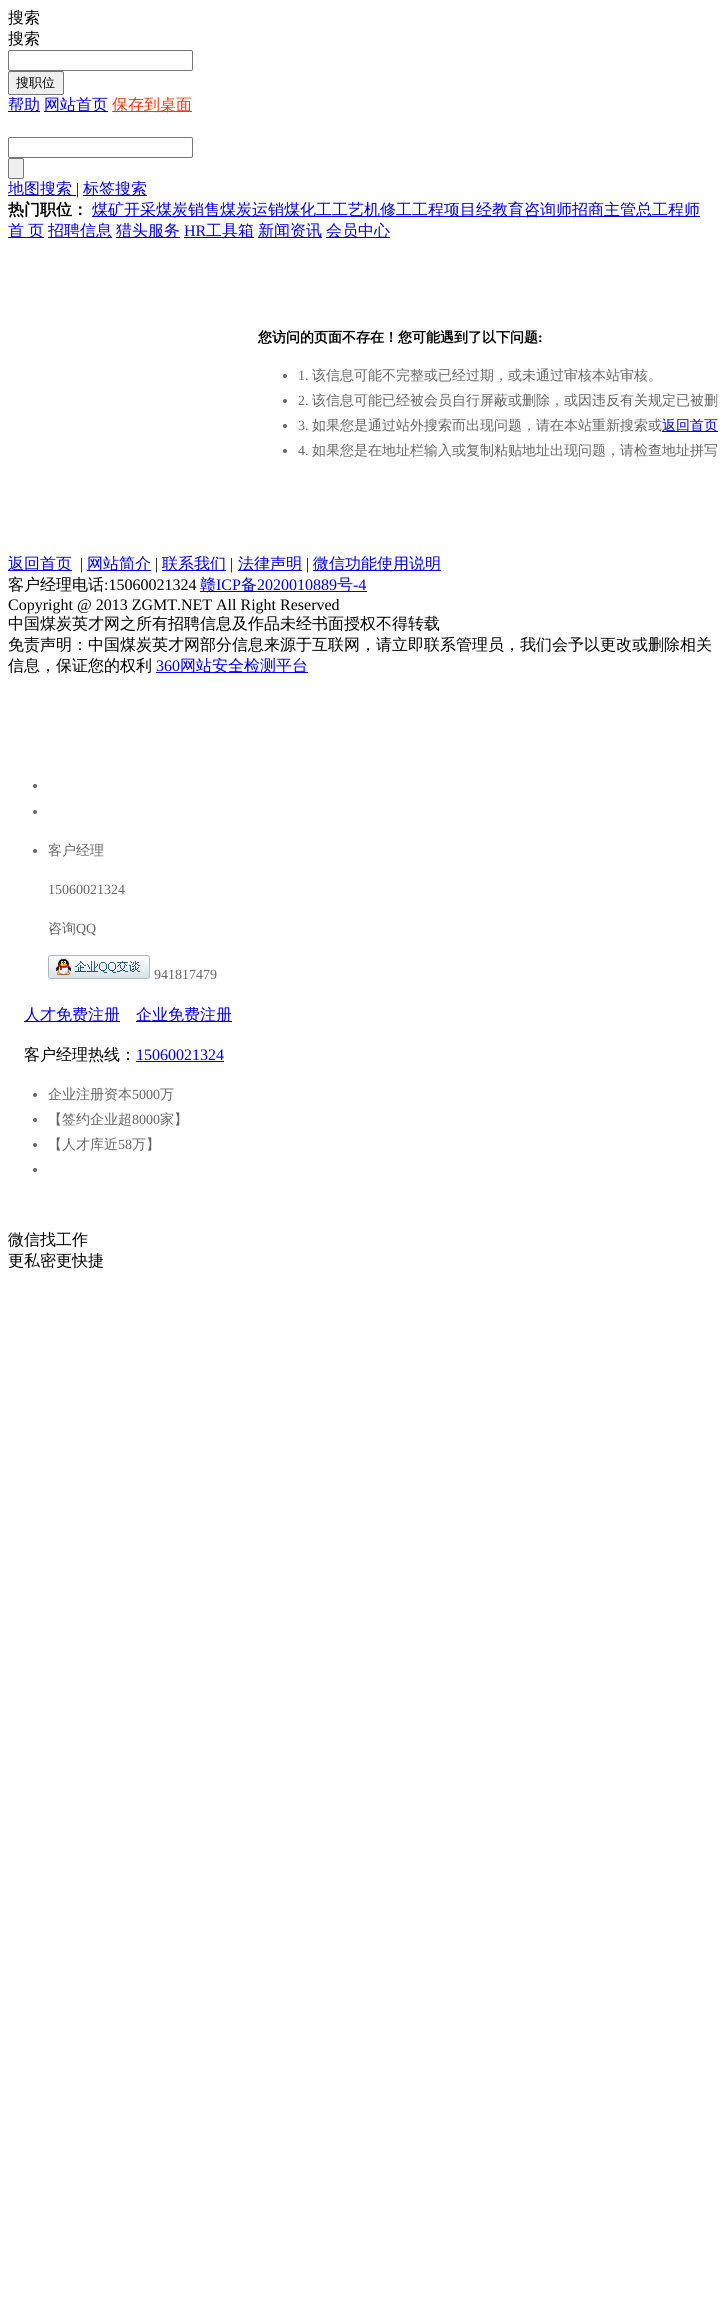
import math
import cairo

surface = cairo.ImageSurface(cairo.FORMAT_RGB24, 722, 2323)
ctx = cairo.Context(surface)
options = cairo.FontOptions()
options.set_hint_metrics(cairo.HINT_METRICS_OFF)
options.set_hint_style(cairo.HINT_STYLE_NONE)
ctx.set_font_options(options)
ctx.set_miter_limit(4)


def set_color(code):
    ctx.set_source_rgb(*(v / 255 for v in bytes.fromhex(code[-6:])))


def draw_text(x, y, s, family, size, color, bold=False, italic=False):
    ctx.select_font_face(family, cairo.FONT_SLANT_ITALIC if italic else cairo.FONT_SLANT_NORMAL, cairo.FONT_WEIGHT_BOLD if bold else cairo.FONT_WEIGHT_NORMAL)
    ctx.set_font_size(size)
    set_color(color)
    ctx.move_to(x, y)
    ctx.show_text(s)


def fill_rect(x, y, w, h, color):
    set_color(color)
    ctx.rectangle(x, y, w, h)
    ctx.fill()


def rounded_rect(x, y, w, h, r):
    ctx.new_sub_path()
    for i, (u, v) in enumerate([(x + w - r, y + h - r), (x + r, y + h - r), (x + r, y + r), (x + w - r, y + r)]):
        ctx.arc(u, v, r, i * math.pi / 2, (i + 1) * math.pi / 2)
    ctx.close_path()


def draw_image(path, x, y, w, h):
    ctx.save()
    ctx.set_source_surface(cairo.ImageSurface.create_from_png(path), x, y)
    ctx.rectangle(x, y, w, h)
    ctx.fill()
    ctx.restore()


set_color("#ffffff")
ctx.paint()
draw_text(8, 23, "搜索", "WenQuanYi Zen Hei Medium", 16, "#000000")
draw_text(8, 44, "搜索", "WenQuanYi Zen Hei Medium", 16, "#000000")
rounded_rect(8.5, 50.5, 184, 20, 1.5)
set_color("#767676")
ctx.set_line_width(1)
ctx.stroke()
set_color("#efefef")
rounded_rect(8.5, 71.5, 55, 23, 1.5)
ctx.fill_preserve()
set_color("#767676")
ctx.stroke()
draw_text(16, 87, "搜职位", "WenQuanYi Zen Hei Medium", 13, "#000000")
fill_rect(8, 111, 32, 1, "#0000ee")
draw_text(8, 110, "帮助", "WenQuanYi Zen Hei Medium", 16, "#0000ee")
fill_rect(44, 111, 64, 1, "#0000ee")
draw_text(44, 110, "网站首页", "WenQuanYi Zen Hei Medium", 16, "#0000ee")
fill_rect(112, 111, 80, 1, "#ff3300")
draw_text(112, 110, "保存到桌面", "WenQuanYi Zen Hei Medium", 16, "#ff3300")
rounded_rect(8.5, 137.5, 184, 20, 1.5)
set_color("#767676")
ctx.stroke()
set_color("#efefef")
rounded_rect(8.5, 158.5, 15, 20, 1.5)
ctx.fill_preserve()
set_color("#767676")
ctx.stroke()
fill_rect(8, 195, 68, 1, "#0000ee")
draw_text(8, 194, "地图搜索", "WenQuanYi Zen Hei Medium", 16, "#0000ee")
draw_text(76, 194, "|", "Liberation Serif", 16, "#000000")
fill_rect(83, 195, 64, 1, "#0000ee")
draw_text(83, 194, "标签搜索", "WenQuanYi Zen Hei Medium", 16, "#0000ee")
draw_text(8, 215, "热门职位：", "WenQuanYi Zen Hei", 16, "#000000", bold=True)
fill_rect(92, 216, 608, 1, "#0000ee")
draw_text(92, 215, "煤矿开采煤炭销售煤炭运销煤化工工艺机修工工程项目经教育咨询师招商主管总工程师", "WenQuanYi Zen Hei Medium", 16, "#0000ee")
fill_rect(8, 237, 36, 1, "#0000ee")
draw_text(8, 236, "首", "WenQuanYi Zen Hei Medium", 16, "#0000ee")
draw_text(28, 236, "页", "WenQuanYi Zen Hei Medium", 16, "#0000ee")
fill_rect(48, 237, 64, 1, "#0000ee")
draw_text(48, 236, "招聘信息", "WenQuanYi Zen Hei Medium", 16, "#0000ee")
fill_rect(116, 237, 64, 1, "#0000ee")
draw_text(116, 236, "猎头服务", "WenQuanYi Zen Hei Medium", 16, "#0000ee")
draw_text(184, 236, "HR", "Liberation Serif", 16, "#0000ee")
fill_rect(184, 237, 70, 1, "#0000ee")
draw_text(206, 236, "工具箱", "WenQuanYi Zen Hei Medium", 16, "#0000ee")
fill_rect(258, 237, 64, 1, "#0000ee")
draw_text(258, 236, "新闻资讯", "WenQuanYi Zen Hei Medium", 16, "#0000ee")
fill_rect(326, 237, 64, 1, "#0000ee")
draw_text(326, 236, "会员中心", "WenQuanYi Zen Hei Medium", 16, "#0000ee")
draw_text(258, 342, "您访问的页面不存在！您可能遇到了以下问题", "WenQuanYi Zen Hei", 14, "#000000", bold=True)
draw_text(538, 342, ":", "Liberation Serif", 14, "#000000", bold=True)
set_color("#666666")
ctx.new_path()
ctx.arc(285, 376, 2, 0, 2 * math.pi)
ctx.fill()
draw_text(298, 380, "1.", "Liberation Serif", 14, "#666666")
draw_text(312, 380, "该信息可能不完整或已经过期，或未通过审核本站审核。", "WenQuanYi Zen Hei Medium", 14, "#666666")
ctx.new_path()
ctx.arc(285, 401, 2, 0, 2 * math.pi)
ctx.fill()
draw_text(298, 405, "2.", "Liberation Serif", 14, "#666666")
draw_text(312, 405, "该信息可能已经被会员自行屏蔽或删除，或因违反有关规定已被删", "WenQuanYi Zen Hei Medium", 14, "#666666")
ctx.new_path()
ctx.arc(285, 426, 2, 0, 2 * math.pi)
ctx.fill()
draw_text(298, 430, "3.", "Liberation Serif", 14, "#666666")
draw_text(312, 430, "如果您是通过站外搜索而出现问题，请在本站重新搜索或", "WenQuanYi Zen Hei Medium", 14, "#666666")
fill_rect(662, 431, 56, 1, "#0000ee")
draw_text(662, 430, "返回首页", "WenQuanYi Zen Hei Medium", 14, "#0000ee")
set_color("#666666")
ctx.new_path()
ctx.arc(285, 451, 2, 0, 2 * math.pi)
ctx.fill()
draw_text(298, 455, "4.", "Liberation Serif", 14, "#666666")
draw_text(312, 455, "如果您是在地址栏输入或复制粘贴地址出现问题，请检查地址拼写", "WenQuanYi Zen Hei Medium", 14, "#666666")
fill_rect(8, 570, 64, 1, "#0000ee")
draw_text(8, 569, "返回首页", "WenQuanYi Zen Hei Medium", 16, "#0000ee")
draw_text(80, 569, "|", "Liberation Serif", 16, "#000000")
fill_rect(87, 570, 64, 1, "#0000ee")
draw_text(87, 569, "网站简介", "WenQuanYi Zen Hei Medium", 16, "#0000ee")
draw_text(155, 569, "|", "Liberation Serif", 16, "#000000")
fill_rect(162, 570, 64, 1, "#0000ee")
draw_text(162, 569, "联系我们", "WenQuanYi Zen Hei Medium", 16, "#0000ee")
draw_text(230, 569, "|", "Liberation Serif", 16, "#000000")
fill_rect(238, 570, 64, 1, "#0000ee")
draw_text(238, 569, "法律声明", "WenQuanYi Zen Hei Medium", 16, "#0000ee")
draw_text(306, 569, "|", "Liberation Serif", 16, "#000000")
fill_rect(313, 570, 128, 1, "#0000ee")
draw_text(313, 569, "微信功能使用说明", "WenQuanYi Zen Hei Medium", 16, "#0000ee")
draw_text(8, 590, "客户经理电话", "WenQuanYi Zen Hei Medium", 16, "#000000")
draw_text(104, 590, ":15060021324", "Liberation Serif", 16, "#000000")
fill_rect(200, 591, 167, 1, "#0000ee")
draw_text(200, 590, "赣", "WenQuanYi Zen Hei Medium", 16, "#0000ee")
draw_text(216, 590, "ICP", "Liberation Serif", 16, "#0000ee")
draw_text(241, 590, "备", "WenQuanYi Zen Hei Medium", 16, "#0000ee")
draw_text(257, 590, "2020010889", "Liberation Serif", 16, "#0000ee")
draw_text(337, 590, "号", "WenQuanYi Zen Hei Medium", 16, "#0000ee")
draw_text(353, 590, "-4", "Liberation Serif", 16, "#0000ee")
draw_text(8, 610, "Copyright @ 2013 ZGMT.NET All Right Reserved", "Liberation Serif", 16, "#000000")
draw_text(8, 629, "中国煤炭英才网之所有招聘信息及作品未经书面授权不得转载", "WenQuanYi Zen Hei Medium", 16, "#000000")
draw_text(8, 650, "免责声明：中国煤炭英才网部分信息来源于互联网，请立即联系管理员，我们会予以更改或删除相关", "WenQuanYi Zen Hei Medium", 16, "#000000")
draw_text(8, 671, "信息，保证您的权利", "WenQuanYi Zen Hei Medium", 16, "#000000")
draw_text(156, 671, "360", "Liberation Serif", 16, "#0000ee")
fill_rect(156, 672, 152, 1, "#0000ee")
draw_text(180, 671, "网站安全检测平台", "WenQuanYi Zen Hei Medium", 16, "#0000ee")
set_color("#666666")
ctx.new_path()
ctx.arc(35, 786, 2, 0, 2 * math.pi)
ctx.fill()
ctx.arc(35, 812, 2, 0, 2 * math.pi)
ctx.fill()
ctx.arc(35, 851, 2, 0, 2 * math.pi)
ctx.fill()
draw_text(48, 855, "客户经理", "WenQuanYi Zen Hei Medium", 14, "#666666")
draw_text(48, 894, "15060021324", "Liberation Serif", 14, "#666666")
draw_text(48, 933, "咨询", "WenQuanYi Zen Hei Medium", 14, "#666666")
draw_text(76, 933, "QQ", "Liberation Serif", 14, "#666666")
draw_image("assets/img1.png", 48, 955, 102, 24)
draw_text(154, 979, "941817479", "Liberation Serif", 14, "#666666")
fill_rect(24, 1021, 96, 1, "#0000ee")
draw_text(24, 1020, "人才免费注册", "WenQuanYi Zen Hei Medium", 16, "#0000ee")
fill_rect(136, 1021, 96, 1, "#0000ee")
draw_text(136, 1020, "企业免费注册", "WenQuanYi Zen Hei Medium", 16, "#0000ee")
draw_text(24, 1060, "客户经理热线：", "WenQuanYi Zen Hei Medium", 16, "#000000")
draw_text(136, 1060, "15060021324", "Liberation Serif", 16, "#0000ee")
fill_rect(136, 1061, 88, 1, "#0000ee")
set_color("#666666")
ctx.new_path()
ctx.arc(35, 1095, 2, 0, 2 * math.pi)
ctx.fill()
draw_text(48, 1099, "企业注册资本", "WenQuanYi Zen Hei Medium", 14, "#666666")
draw_text(132, 1099, "5000", "Liberation Serif", 14, "#666666")
draw_text(160, 1099, "万", "WenQuanYi Zen Hei Medium", 14, "#666666")
ctx.new_path()
ctx.arc(35, 1120, 2, 0, 2 * math.pi)
ctx.fill()
draw_text(48, 1124, "【签约企业超", "WenQuanYi Zen Hei Medium", 14, "#666666")
draw_text(132, 1124, "8000", "Liberation Serif", 14, "#666666")
draw_text(160, 1124, "家】", "WenQuanYi Zen Hei Medium", 14, "#666666")
ctx.new_path()
ctx.arc(35, 1145, 2, 0, 2 * math.pi)
ctx.fill()
draw_text(48, 1149, "【人才库近", "WenQuanYi Zen Hei Medium", 14, "#666666")
draw_text(118, 1149, "58", "Liberation Serif", 14, "#666666")
draw_text(132, 1149, "万】", "WenQuanYi Zen Hei Medium", 14, "#666666")
ctx.new_path()
ctx.arc(35, 1170, 2, 0, 2 * math.pi)
ctx.fill()
draw_text(8, 1245, "微信找工作", "WenQuanYi Zen Hei Medium", 16, "#000000")
draw_text(8, 1266, "更私密更快捷", "WenQuanYi Zen Hei Medium", 16, "#000000")
surface.write_to_png("output.png")
